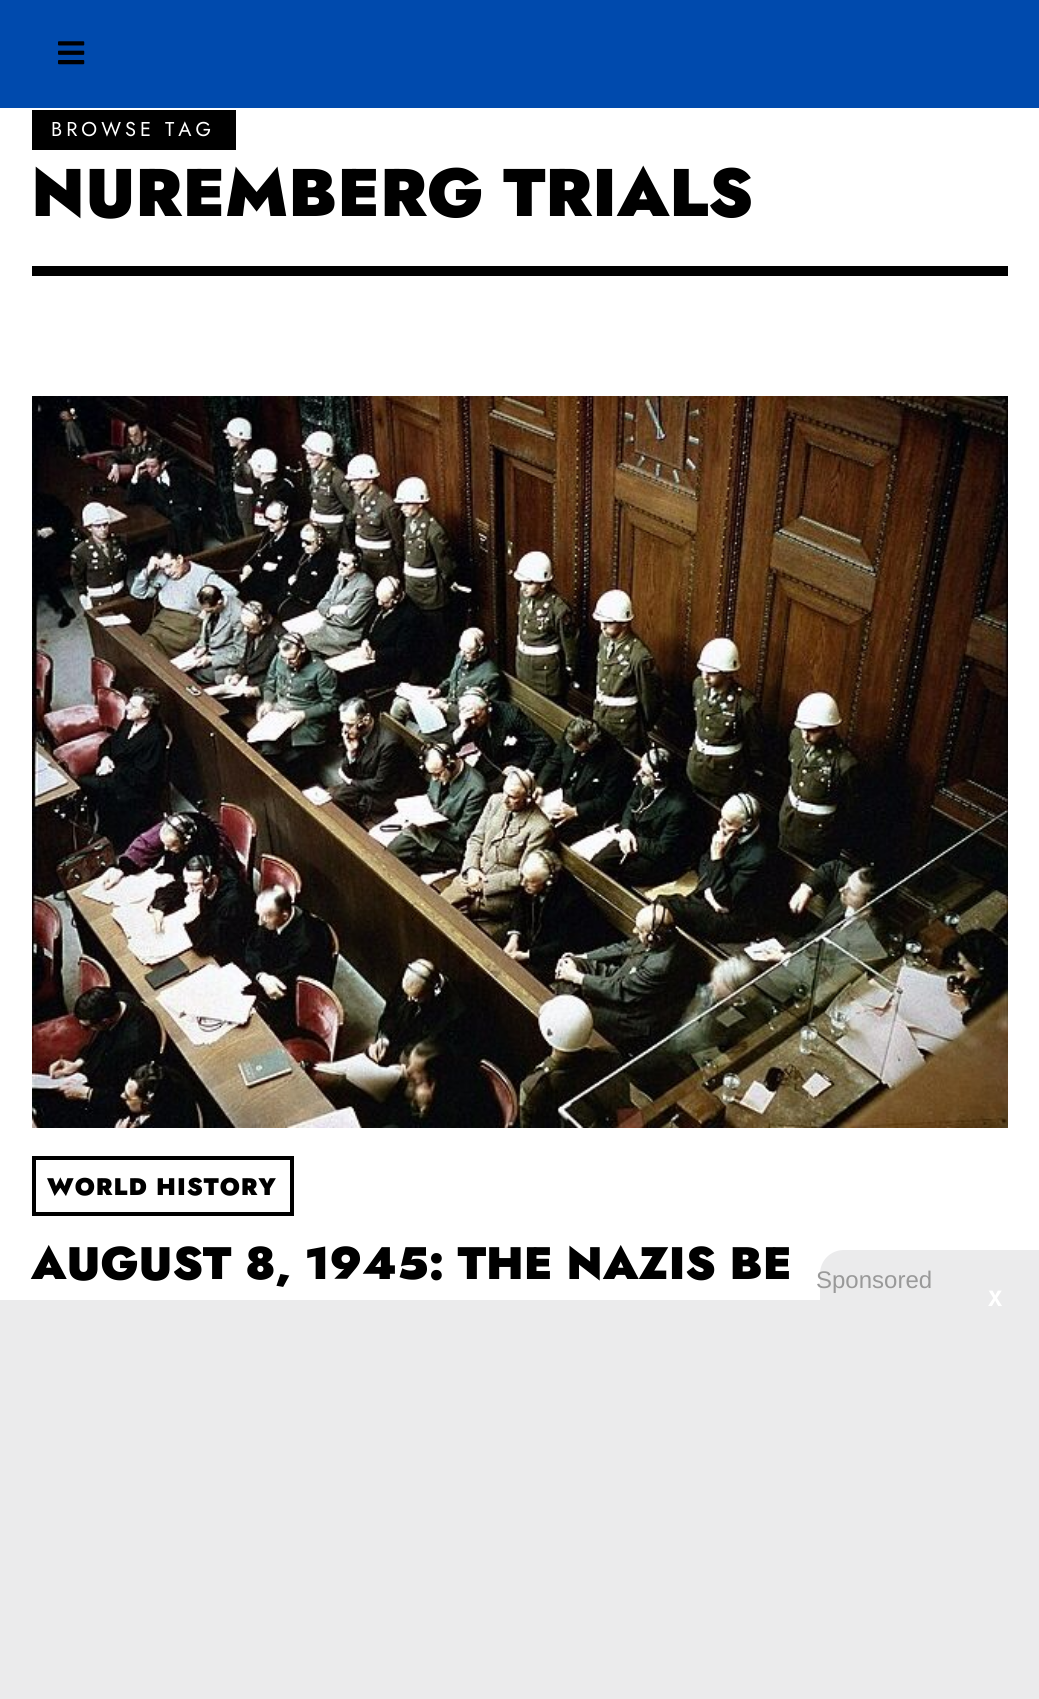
import math
import cairo

surface = cairo.ImageSurface(cairo.FORMAT_RGB24, 1039, 1699)
ctx = cairo.Context(surface)
options = cairo.FontOptions()
options.set_hint_metrics(cairo.HINT_METRICS_OFF)
options.set_hint_style(cairo.HINT_STYLE_NONE)
ctx.set_font_options(options)
ctx.set_miter_limit(4)


def set_color(code):
    ctx.set_source_rgb(*(v / 255 for v in bytes.fromhex(code[-6:])))


def draw_text(x, y, s, family, size, color, bold=False, italic=False):
    ctx.select_font_face(family, cairo.FONT_SLANT_ITALIC if italic else cairo.FONT_SLANT_NORMAL, cairo.FONT_WEIGHT_BOLD if bold else cairo.FONT_WEIGHT_NORMAL)
    ctx.set_font_size(size)
    set_color(color)
    ctx.move_to(x, y)
    ctx.show_text(s)


def draw_spaced(x, y, s, letter, word):
    ctx.move_to(x, y)
    for ch in s:
        ctx.show_text(ch)
        ctx.rel_move_to(letter + word * (ch == ' '), 0)


def fill_rect(x, y, w, h, color):
    set_color(color)
    ctx.rectangle(x, y, w, h)
    ctx.fill()


def draw_image(path, x, y, w, h):
    ctx.save()
    ctx.set_source_surface(cairo.ImageSurface.create_from_png(path), x, y)
    ctx.rectangle(x, y, w, h)
    ctx.fill()
    ctx.restore()


set_color("#ffffff")
ctx.paint()
fill_rect(0, 0, 1039, 108, "#004aad")
draw_image("assets/img1.png", 58, 41, 27, 24)
fill_rect(32, 266, 976, 10, "#000000")
fill_rect(32, 110, 204, 40, "#000000")
ctx.select_font_face("Jost")
ctx.set_font_size(20)
set_color("#ffffff")
draw_spaced(51, 136, "BROWSE TAG", 4, 0)
draw_text(31, 216, "NUREMBERG TRIALS", "Jost Black", 67.25, "#000000")
draw_image("assets/img2.png", 32, 396, 976, 732)
ctx.rectangle(34, 1158, 258, 56)
ctx.set_line_width(4)
ctx.stroke()
ctx.set_font_size(24)
draw_spaced(47, 1195, "WORLD HISTORY", 1, 0)
draw_text(31, 1279, "AUGUST 8, 1945: THE NAZIS BE", "Jost Black", 45.5, "#000000")
fill_rect(0, 1300, 1039, 399, "#ebebec")
ctx.new_path()
ctx.move_to(844, 1250)
ctx.line_to(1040, 1250)
ctx.line_to(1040, 1310)
ctx.line_to(820, 1310)
ctx.line_to(820, 1274)
ctx.curve_to(820, 1260.5, 830.5, 1250, 844, 1250)
ctx.close_path()
ctx.fill()
draw_text(816, 1288, "Sponsored", "Liberation Sans", 24, "#999999")
draw_text(988, 1306, "X", "Jost SemiBold", 22, "#ffffff")
surface.write_to_png("output.png")
